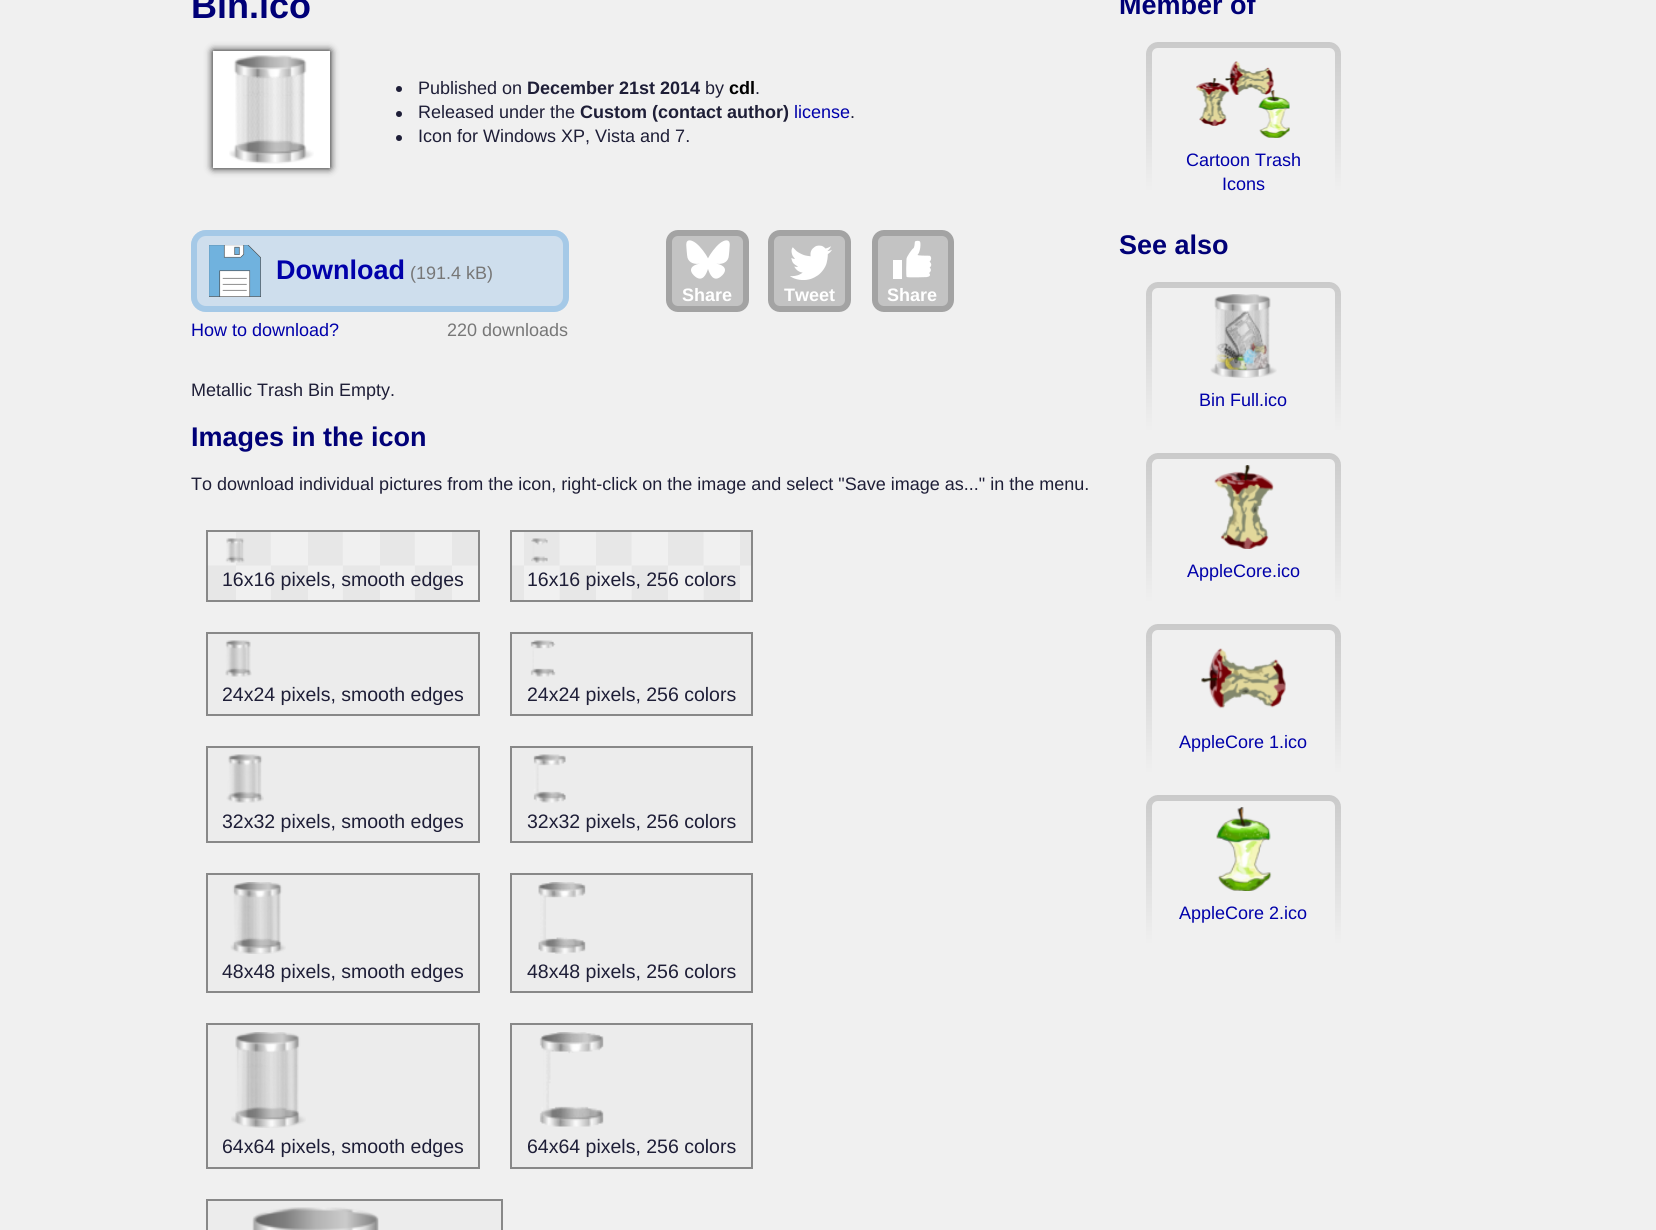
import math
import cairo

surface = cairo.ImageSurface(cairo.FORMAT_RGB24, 1656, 1230)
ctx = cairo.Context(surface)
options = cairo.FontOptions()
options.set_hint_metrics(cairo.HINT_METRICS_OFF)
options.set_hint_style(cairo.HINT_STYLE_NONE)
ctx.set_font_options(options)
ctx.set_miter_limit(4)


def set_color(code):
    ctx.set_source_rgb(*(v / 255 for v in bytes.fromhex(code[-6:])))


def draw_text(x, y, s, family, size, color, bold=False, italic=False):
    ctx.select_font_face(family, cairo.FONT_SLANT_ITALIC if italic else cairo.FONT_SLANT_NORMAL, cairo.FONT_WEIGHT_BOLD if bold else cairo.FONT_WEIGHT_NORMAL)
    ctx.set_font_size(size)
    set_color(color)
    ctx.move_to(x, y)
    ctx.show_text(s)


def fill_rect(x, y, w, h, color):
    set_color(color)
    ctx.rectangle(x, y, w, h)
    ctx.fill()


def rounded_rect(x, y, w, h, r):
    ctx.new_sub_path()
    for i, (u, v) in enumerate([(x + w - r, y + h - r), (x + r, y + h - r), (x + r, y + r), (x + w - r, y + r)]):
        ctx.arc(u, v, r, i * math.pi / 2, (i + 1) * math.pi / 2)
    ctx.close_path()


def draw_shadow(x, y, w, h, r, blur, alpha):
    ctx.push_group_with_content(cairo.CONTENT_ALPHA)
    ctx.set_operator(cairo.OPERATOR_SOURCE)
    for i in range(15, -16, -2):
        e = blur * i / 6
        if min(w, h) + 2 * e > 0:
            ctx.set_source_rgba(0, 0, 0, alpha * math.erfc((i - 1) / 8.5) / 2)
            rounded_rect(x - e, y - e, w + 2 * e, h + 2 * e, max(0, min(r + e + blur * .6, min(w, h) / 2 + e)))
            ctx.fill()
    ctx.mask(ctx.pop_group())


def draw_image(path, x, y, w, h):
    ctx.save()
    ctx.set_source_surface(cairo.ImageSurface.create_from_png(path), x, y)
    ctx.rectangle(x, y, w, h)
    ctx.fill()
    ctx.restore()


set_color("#f0f0f0")
ctx.paint()
draw_text(191, 18, "Bin.ico", "Liberation Sans", 36, "#000077", bold=True)
set_color("#000000")
draw_shadow(213, 51, 117, 117, 0, 4, 1)
fill_rect(213, 51, 117, 117, "#ffffff")
draw_image("assets/img1.png", 229, 55, 85, 109)
set_color("#1e1e37")
ctx.arc(399, 89, 3, 0, 2 * math.pi)
ctx.fill()
draw_text(418, 94, "Published on", "Liberation Sans", 18, "#1e1e37")
draw_text(527, 94, "December 21st 2014", "Liberation Sans", 18, "#1e1e37", bold=True)
draw_text(705, 94, "by", "Liberation Sans", 18, "#1e1e37")
draw_text(729, 94, "cdl", "Liberation Sans", 18, "#000000", bold=True)
draw_text(755, 94, ".", "Liberation Sans", 18, "#1e1e37")
ctx.new_path()
ctx.arc(399, 114, 3, 0, 2 * math.pi)
ctx.fill()
draw_text(418, 118, "Released under the", "Liberation Sans", 18, "#1e1e37")
draw_text(580, 118, "Custom (contact author)", "Liberation Sans", 18, "#1e1e37", bold=True)
draw_text(794, 118, "license", "Liberation Sans", 18, "#0000aa")
draw_text(850, 118, ".", "Liberation Sans", 18, "#1e1e37")
ctx.new_path()
ctx.arc(399, 138, 3, 0, 2 * math.pi)
ctx.fill()
draw_text(418, 142, "Icon for Windows XP, Vista and 7.", "Liberation Sans", 18, "#1e1e37")
set_color("#cedeed")
rounded_rect(191, 230, 378, 82, 15)
ctx.fill()
draw_image("assets/img2.png", 209, 245, 52, 52)
rounded_rect(194, 233, 372, 76, 12)
set_color("#a5c9e7")
ctx.set_line_width(6)
ctx.stroke()
draw_text(276, 279, "Download", "Liberation Sans", 27, "#0000aa", bold=True)
draw_text(410, 279, "(191.4 kB)", "Liberation Sans", 18, "#777777")
draw_text(191, 336, "How to download?", "Liberation Sans", 18, "#0000aa")
draw_text(447, 336, "220 downloads", "Liberation Sans", 18, "#777777")
set_color("#c3c3c3")
rounded_rect(669, 233, 77, 76, 9)
ctx.fill_preserve()
set_color("#a3a3a3")
ctx.stroke()
draw_image("assets/img3.png", 686, 240, 44, 39)
draw_text(682, 301, "Share", "Liberation Sans", 18, "#ffffff", bold=True)
set_color("#c3c3c3")
rounded_rect(771, 233, 77, 76, 9)
ctx.fill_preserve()
set_color("#a3a3a3")
ctx.stroke()
draw_image("assets/img4.png", 790, 245, 42, 35)
draw_text(784, 301, "Tweet", "Liberation Sans", 18, "#ffffff", bold=True)
set_color("#c3c3c3")
rounded_rect(875, 233, 76, 76, 9)
ctx.fill_preserve()
set_color("#a3a3a3")
ctx.stroke()
draw_image("assets/img5.png", 893, 240, 39, 39)
draw_text(887, 301, "Share", "Liberation Sans", 18, "#ffffff", bold=True)
draw_text(191, 396, "Metallic Trash Bin Empty.", "Liberation Sans", 18, "#1e1e37")
draw_text(191, 446, "Images in the icon", "Liberation Sans", 27, "#000077", bold=True)
draw_text(191, 490, "To download individual pictures from the icon, right-click on the image and select \"Save image as...\" in the menu.", "Liberation Sans", 18, "#1e1e37")
draw_image("assets/img6.png", 208, 532, 270, 68)
ctx.rectangle(207, 531, 272, 70)
set_color("#888888")
ctx.set_line_width(2)
ctx.stroke()
draw_image("assets/img7.png", 225, 538, 20, 25)
draw_text(222, 586, "16x16 pixels, smooth edges", "Liberation Sans", 19.5, "#1e1e37")
draw_image("assets/img8.png", 512, 532, 239, 68)
ctx.rectangle(511, 531, 241, 70)
set_color("#888888")
ctx.stroke()
draw_image("assets/img9.png", 531, 538, 17, 25)
draw_text(527, 586, "16x16 pixels, 256 colors", "Liberation Sans", 19.5, "#1e1e37")
set_color("#ececec")
ctx.rectangle(207, 633, 272, 82)
ctx.fill_preserve()
set_color("#888888")
ctx.stroke()
draw_image("assets/img10.png", 225, 640, 27, 37)
draw_text(222, 701, "24x24 pixels, smooth edges", "Liberation Sans", 19.5, "#1e1e37")
set_color("#ececec")
ctx.rectangle(511, 633, 241, 82)
ctx.fill_preserve()
set_color("#888888")
ctx.stroke()
draw_image("assets/img11.png", 530, 640, 26, 37)
draw_text(527, 701, "24x24 pixels, 256 colors", "Liberation Sans", 19.5, "#1e1e37")
set_color("#ececec")
ctx.rectangle(207, 747, 272, 95)
ctx.fill_preserve()
set_color("#888888")
ctx.stroke()
draw_image("assets/img12.png", 226, 754, 38, 49)
draw_text(222, 828, "32x32 pixels, smooth edges", "Liberation Sans", 19.5, "#1e1e37")
set_color("#ececec")
ctx.rectangle(511, 747, 241, 95)
ctx.fill_preserve()
set_color("#888888")
ctx.stroke()
draw_image("assets/img13.png", 533, 754, 33, 49)
draw_text(527, 828, "32x32 pixels, 256 colors", "Liberation Sans", 19.5, "#1e1e37")
set_color("#ececec")
ctx.rectangle(207, 874, 272, 118)
ctx.fill_preserve()
set_color("#888888")
ctx.stroke()
draw_image("assets/img14.png", 230, 882, 56, 72)
draw_text(222, 978, "48x48 pixels, smooth edges", "Liberation Sans", 19.5, "#1e1e37")
set_color("#ececec")
ctx.rectangle(511, 874, 241, 118)
ctx.fill_preserve()
set_color("#888888")
ctx.stroke()
draw_image("assets/img15.png", 538, 882, 48, 72)
draw_text(527, 978, "48x48 pixels, 256 colors", "Liberation Sans", 19.5, "#1e1e37")
set_color("#ececec")
ctx.rectangle(207, 1024, 272, 144)
ctx.fill_preserve()
set_color("#888888")
ctx.stroke()
draw_image("assets/img16.png", 231, 1032, 75, 96)
draw_text(222, 1153, "64x64 pixels, smooth edges", "Liberation Sans", 19.5, "#1e1e37")
set_color("#ececec")
ctx.rectangle(511, 1024, 241, 144)
ctx.fill_preserve()
set_color("#888888")
ctx.stroke()
draw_image("assets/img17.png", 539, 1032, 65, 95)
draw_text(527, 1153, "64x64 pixels, 256 colors", "Liberation Sans", 19.5, "#1e1e37")
set_color("#ececec")
ctx.rectangle(207, 1200, 295, 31)
ctx.fill_preserve()
set_color("#888888")
ctx.stroke()
draw_image("assets/img18.png", 252, 1207, 127, 23)
draw_text(1119, 14, "Member of", "Liberation Sans", 27, "#000077", bold=True)
gradient = cairo.LinearGradient(1244, 42, 1244, 192)
gradient.add_color_stop_rgba(0, 0.792, 0.792, 0.792, 1)
gradient.add_color_stop_rgba(1, 0.941, 0.941, 0.941, 1)
ctx.set_source(gradient)
ctx.new_path()
ctx.move_to(1158, 42)
ctx.line_to(1329, 42)
ctx.curve_to(1335.5, 42, 1341, 47.5, 1341, 54)
ctx.line_to(1341, 192)
ctx.line_to(1146, 192)
ctx.line_to(1146, 54)
ctx.curve_to(1146, 47.5, 1151.5, 42, 1158, 42)
ctx.close_path()
ctx.fill()
set_color("#f0f0f0")
ctx.new_path()
ctx.move_to(1158, 48)
ctx.line_to(1329, 48)
ctx.curve_to(1332.5, 48, 1335, 50.5, 1335, 54)
ctx.line_to(1335, 192)
ctx.line_to(1152, 192)
ctx.line_to(1152, 54)
ctx.curve_to(1152, 50.5, 1154.5, 48, 1158, 48)
ctx.close_path()
ctx.fill()
draw_image("assets/img19.png", 1196, 61, 94, 77)
draw_text(1186, 166, "Cartoon Trash", "Liberation Sans", 18, "#0000aa")
draw_text(1222, 190, "Icons", "Liberation Sans", 18, "#0000aa")
draw_text(1119, 254, "See also", "Liberation Sans", 27, "#000077", bold=True)
gradient = cairo.LinearGradient(1244, 282, 1244, 432)
gradient.add_color_stop_rgba(0, 0.792, 0.792, 0.792, 1)
gradient.add_color_stop_rgba(1, 0.941, 0.941, 0.941, 1)
ctx.set_source(gradient)
ctx.new_path()
ctx.move_to(1158, 282)
ctx.line_to(1329, 282)
ctx.curve_to(1335.5, 282, 1341, 287.5, 1341, 294)
ctx.line_to(1341, 432)
ctx.line_to(1146, 432)
ctx.line_to(1146, 294)
ctx.curve_to(1146, 287.5, 1151.5, 282, 1158, 282)
ctx.close_path()
ctx.fill()
set_color("#f0f0f0")
ctx.new_path()
ctx.move_to(1158, 288)
ctx.line_to(1329, 288)
ctx.curve_to(1332.5, 288, 1335, 290.5, 1335, 294)
ctx.line_to(1335, 432)
ctx.line_to(1152, 432)
ctx.line_to(1152, 294)
ctx.curve_to(1152, 290.5, 1154.5, 288, 1158, 288)
ctx.close_path()
ctx.fill()
draw_image("assets/img20.png", 1210, 294, 67, 84)
draw_text(1199, 406, "Bin Full.ico", "Liberation Sans", 18, "#0000aa")
gradient = cairo.LinearGradient(1244, 453, 1244, 603)
gradient.add_color_stop_rgba(0, 0.792, 0.792, 0.792, 1)
gradient.add_color_stop_rgba(1, 0.941, 0.941, 0.941, 1)
ctx.set_source(gradient)
ctx.new_path()
ctx.move_to(1158, 453)
ctx.line_to(1329, 453)
ctx.curve_to(1335.5, 453, 1341, 458.5, 1341, 465)
ctx.line_to(1341, 603)
ctx.line_to(1146, 603)
ctx.line_to(1146, 465)
ctx.curve_to(1146, 458.5, 1151.5, 453, 1158, 453)
ctx.close_path()
ctx.fill()
set_color("#f0f0f0")
ctx.new_path()
ctx.move_to(1158, 459)
ctx.line_to(1329, 459)
ctx.curve_to(1332.5, 459, 1335, 461.5, 1335, 465)
ctx.line_to(1335, 603)
ctx.line_to(1152, 603)
ctx.line_to(1152, 465)
ctx.curve_to(1152, 461.5, 1154.5, 459, 1158, 459)
ctx.close_path()
ctx.fill()
draw_image("assets/img21.png", 1214, 465, 60, 84)
draw_text(1187, 577, "AppleCore.ico", "Liberation Sans", 18, "#0000aa")
gradient = cairo.LinearGradient(1244, 624, 1244, 774)
gradient.add_color_stop_rgba(0, 0.792, 0.792, 0.792, 1)
gradient.add_color_stop_rgba(1, 0.941, 0.941, 0.941, 1)
ctx.set_source(gradient)
ctx.new_path()
ctx.move_to(1158, 624)
ctx.line_to(1329, 624)
ctx.curve_to(1335.5, 624, 1341, 629.5, 1341, 636)
ctx.line_to(1341, 774)
ctx.line_to(1146, 774)
ctx.line_to(1146, 636)
ctx.curve_to(1146, 629.5, 1151.5, 624, 1158, 624)
ctx.close_path()
ctx.fill()
set_color("#f0f0f0")
ctx.new_path()
ctx.move_to(1158, 630)
ctx.line_to(1329, 630)
ctx.curve_to(1332.5, 630, 1335, 632.5, 1335, 636)
ctx.line_to(1335, 774)
ctx.line_to(1152, 774)
ctx.line_to(1152, 636)
ctx.curve_to(1152, 632.5, 1154.5, 630, 1158, 630)
ctx.close_path()
ctx.fill()
draw_image("assets/img22.png", 1201, 648, 85, 61)
draw_text(1179, 748, "AppleCore 1.ico", "Liberation Sans", 18, "#0000aa")
gradient = cairo.LinearGradient(1244, 795, 1244, 945)
gradient.add_color_stop_rgba(0, 0.792, 0.792, 0.792, 1)
gradient.add_color_stop_rgba(1, 0.941, 0.941, 0.941, 1)
ctx.set_source(gradient)
ctx.new_path()
ctx.move_to(1158, 795)
ctx.line_to(1329, 795)
ctx.curve_to(1335.5, 795, 1341, 800.5, 1341, 807)
ctx.line_to(1341, 945)
ctx.line_to(1146, 945)
ctx.line_to(1146, 807)
ctx.curve_to(1146, 800.5, 1151.5, 795, 1158, 795)
ctx.close_path()
ctx.fill()
set_color("#f0f0f0")
ctx.new_path()
ctx.move_to(1158, 801)
ctx.line_to(1329, 801)
ctx.curve_to(1332.5, 801, 1335, 803.5, 1335, 807)
ctx.line_to(1335, 945)
ctx.line_to(1152, 945)
ctx.line_to(1152, 807)
ctx.curve_to(1152, 803.5, 1154.5, 801, 1158, 801)
ctx.close_path()
ctx.fill()
draw_image("assets/img23.png", 1216, 807, 56, 84)
draw_text(1179, 919, "AppleCore 2.ico", "Liberation Sans", 18, "#0000aa")
surface.write_to_png("output.png")
